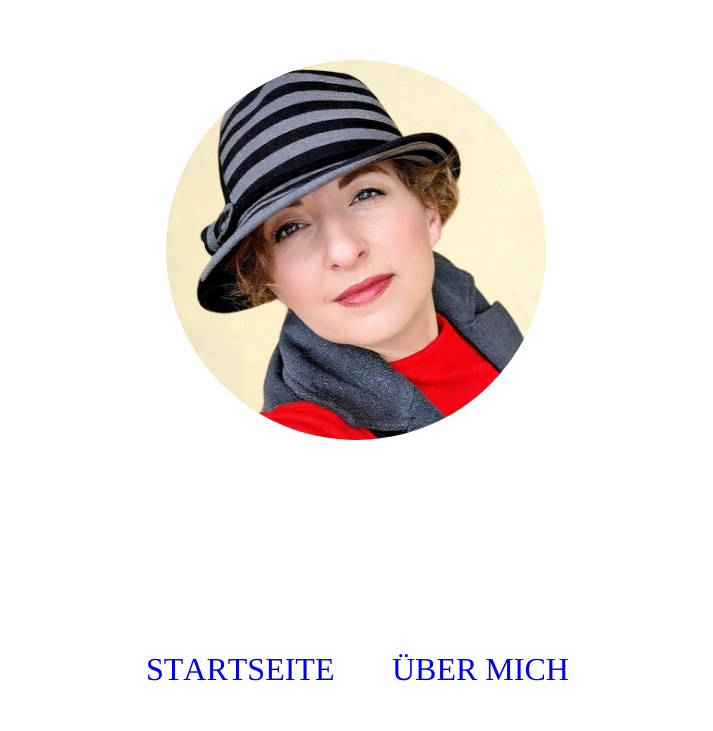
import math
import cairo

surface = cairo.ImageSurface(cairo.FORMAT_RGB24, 713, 731)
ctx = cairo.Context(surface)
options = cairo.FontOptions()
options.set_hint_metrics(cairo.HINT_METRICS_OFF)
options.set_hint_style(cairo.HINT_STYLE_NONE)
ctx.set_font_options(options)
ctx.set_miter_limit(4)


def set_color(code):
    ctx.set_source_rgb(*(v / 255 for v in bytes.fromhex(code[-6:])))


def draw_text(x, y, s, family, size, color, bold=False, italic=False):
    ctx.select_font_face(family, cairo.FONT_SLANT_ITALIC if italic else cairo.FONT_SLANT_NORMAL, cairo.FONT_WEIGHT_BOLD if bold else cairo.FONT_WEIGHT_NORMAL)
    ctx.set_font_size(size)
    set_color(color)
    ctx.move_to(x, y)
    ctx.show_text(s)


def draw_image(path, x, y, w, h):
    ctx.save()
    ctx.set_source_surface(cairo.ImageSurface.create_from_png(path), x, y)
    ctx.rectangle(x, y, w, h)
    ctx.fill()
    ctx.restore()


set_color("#ffffff")
ctx.paint()
draw_image("assets/img1.png", 166, 60, 380, 380)
draw_text(146, 680, "STARTSEITE", "Liberation Serif", 32, "#0000ee")
draw_text(392, 680, "ÜBER MICH", "Liberation Serif", 32, "#0000ee")
surface.write_to_png("output.png")
